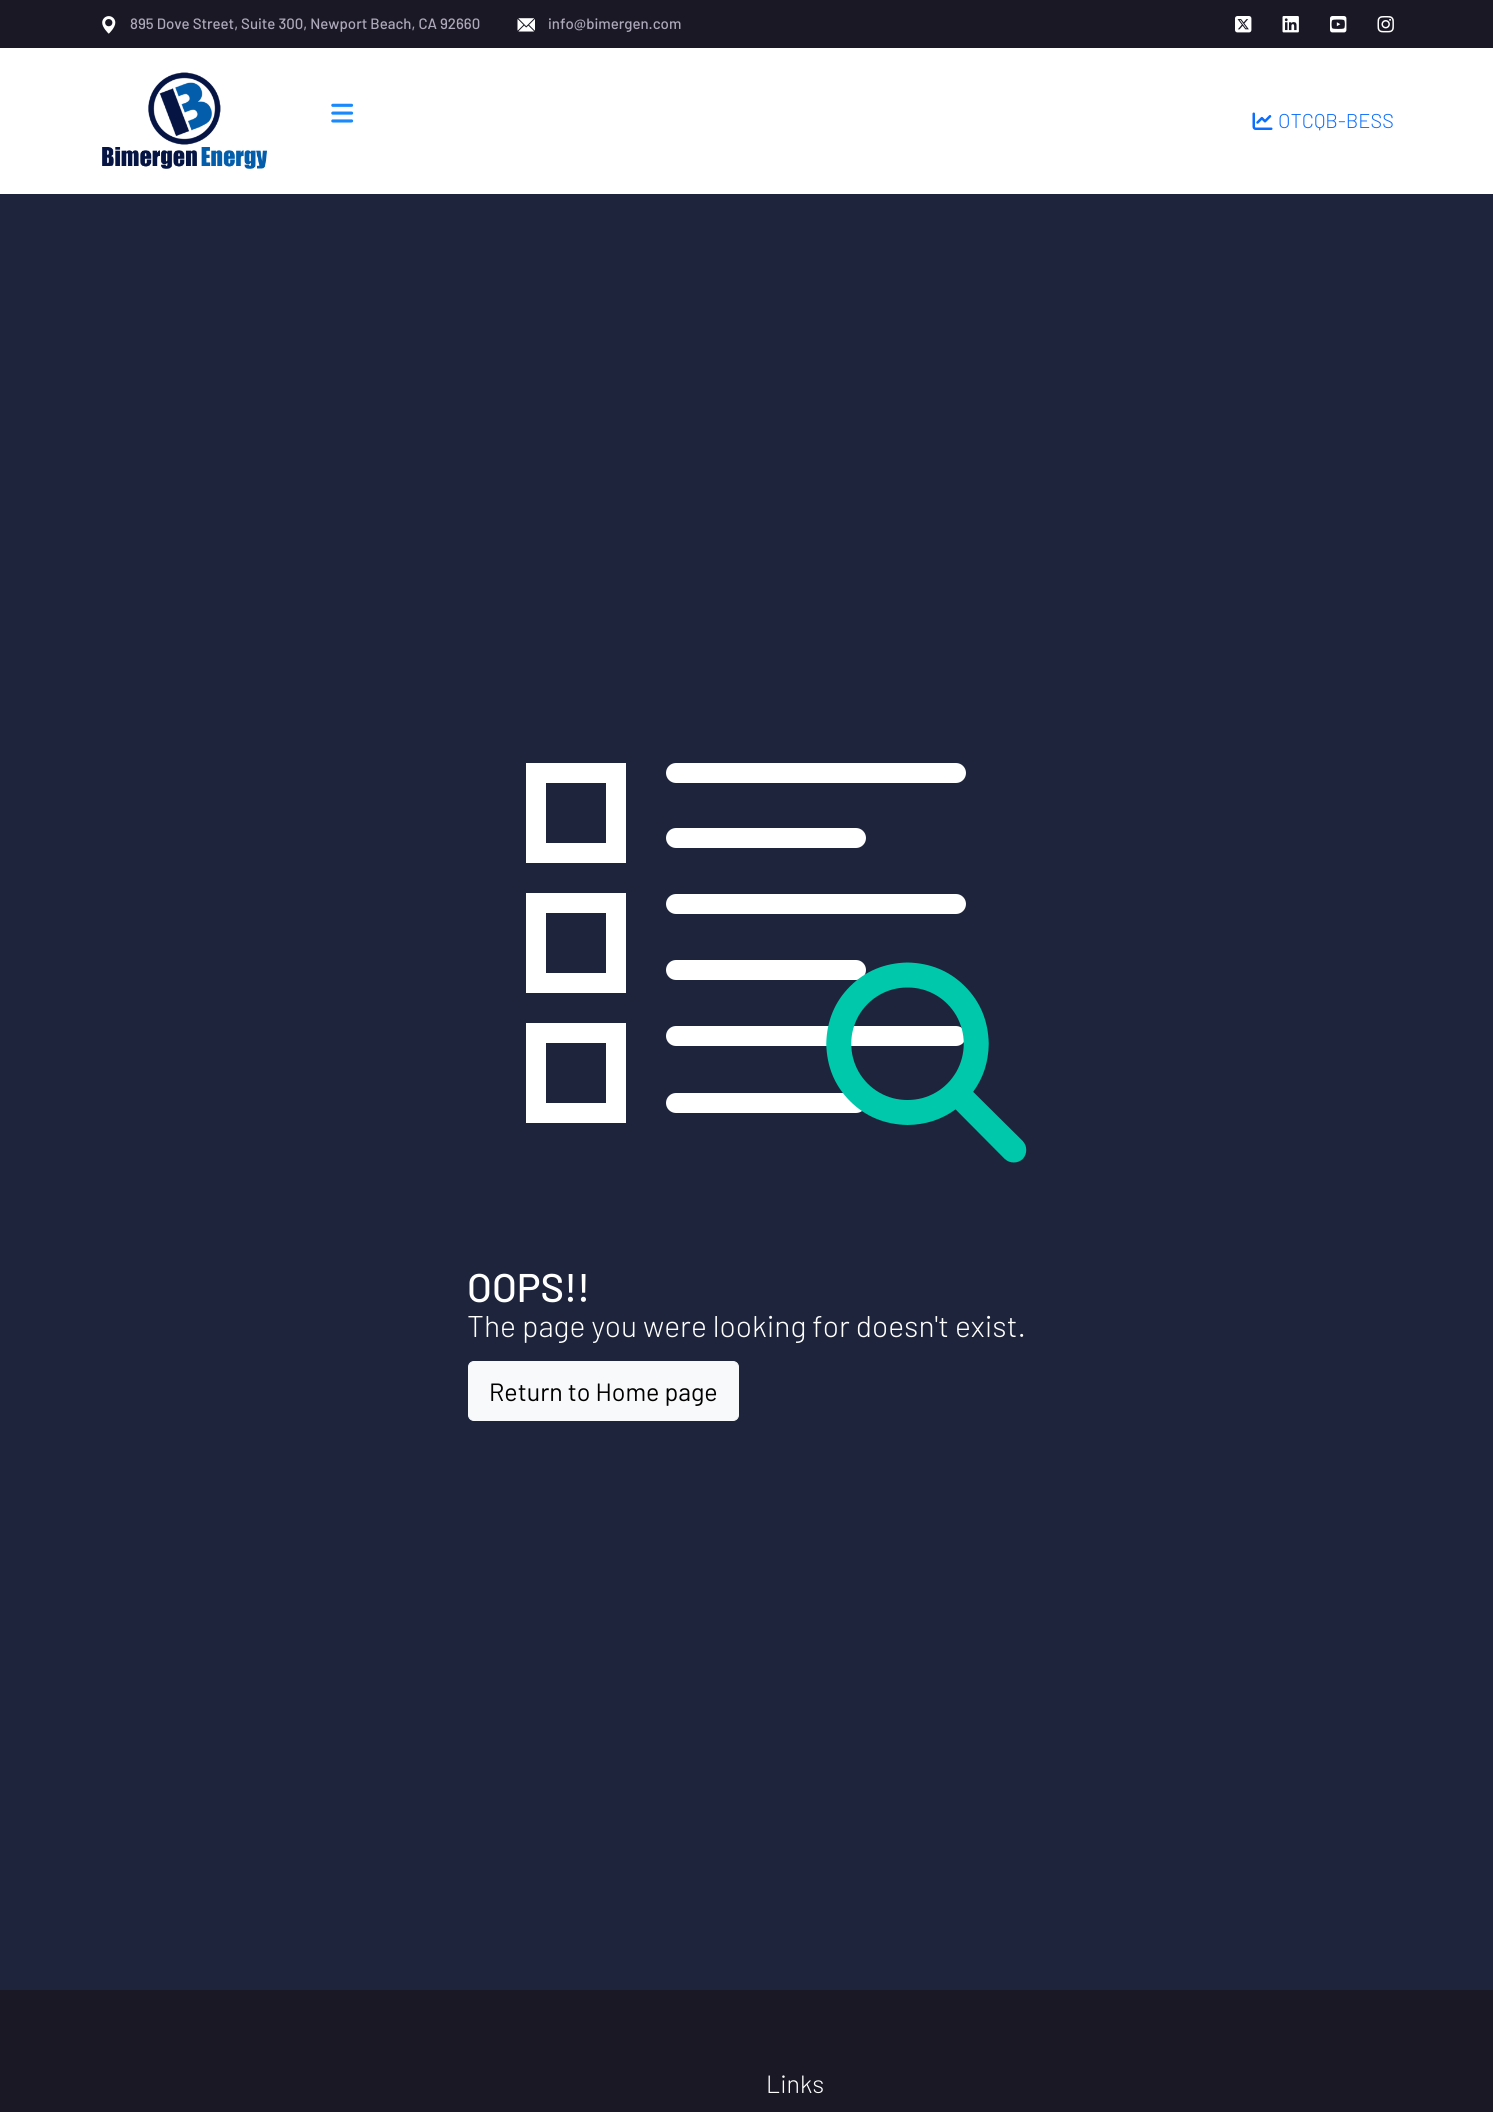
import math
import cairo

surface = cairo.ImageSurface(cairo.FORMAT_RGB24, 1493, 2112)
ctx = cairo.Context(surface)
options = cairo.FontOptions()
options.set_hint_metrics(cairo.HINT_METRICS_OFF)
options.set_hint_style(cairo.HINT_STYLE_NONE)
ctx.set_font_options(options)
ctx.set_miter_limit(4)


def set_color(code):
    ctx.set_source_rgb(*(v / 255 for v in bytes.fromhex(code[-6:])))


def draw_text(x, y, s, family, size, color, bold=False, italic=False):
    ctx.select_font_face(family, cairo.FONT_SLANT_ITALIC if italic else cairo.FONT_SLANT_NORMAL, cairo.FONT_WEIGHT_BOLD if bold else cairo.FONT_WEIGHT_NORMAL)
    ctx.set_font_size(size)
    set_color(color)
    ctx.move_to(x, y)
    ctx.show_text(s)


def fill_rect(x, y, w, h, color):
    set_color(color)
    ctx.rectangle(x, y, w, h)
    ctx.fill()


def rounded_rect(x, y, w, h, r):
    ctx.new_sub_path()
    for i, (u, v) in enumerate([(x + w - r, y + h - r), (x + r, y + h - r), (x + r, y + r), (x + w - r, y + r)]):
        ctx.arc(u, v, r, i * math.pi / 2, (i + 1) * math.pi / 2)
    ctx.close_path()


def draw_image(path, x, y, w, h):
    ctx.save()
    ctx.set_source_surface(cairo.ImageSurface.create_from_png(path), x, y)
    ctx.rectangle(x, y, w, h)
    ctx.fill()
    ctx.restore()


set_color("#ffffff")
ctx.paint()
fill_rect(0, 0, 1493, 48, "#1b1825")
draw_image("assets/img1.png", 102, 16, 14, 18)
draw_text(130, 29, "895 Dove Street, Suite 300, Newport Beach, CA 92660", "Barlow Medium", 15, "#ada8ba")
draw_image("assets/img2.png", 517, 18, 18, 14)
draw_text(548, 29, "info@bimergen.com", "Barlow Medium", 15, "#ada8ba")
draw_image("assets/img3.png", 1235, 16, 17, 17)
draw_image("assets/img4.png", 1282, 16, 17, 17)
draw_image("assets/img5.png", 1330, 16, 17, 17)
draw_image("assets/img6.png", 1377, 16, 17, 17)
draw_image("assets/img7.png", 102, 72, 165, 97)
draw_image("assets/img8.png", 331, 103, 23, 20)
draw_image("assets/img9.png", 1252, 112, 21, 18)
draw_text(1278, 128, "OTCQB-BESS", "Barlow Light", 20, "#0d6efd")
fill_rect(0, 194, 1493, 1796, "#1d243c")
ctx.rectangle(536, 773, 80, 80)
set_color("#ffffff")
ctx.set_line_width(20)
ctx.stroke()
ctx.rectangle(536, 903, 80, 80)
ctx.stroke()
ctx.rectangle(536, 1033, 80, 80)
ctx.stroke()
rounded_rect(666, 763, 300, 20, 10)
ctx.fill()
rounded_rect(666, 828, 200, 20, 10)
ctx.fill()
rounded_rect(666, 894, 300, 20, 10)
ctx.fill()
rounded_rect(666, 960, 200, 20, 10)
ctx.fill()
rounded_rect(666, 1026, 300, 20, 10)
ctx.fill()
rounded_rect(666, 1093, 200, 20, 10)
ctx.fill()
draw_image("assets/img10.png", 826, 962, 201, 201)
draw_text(467, 1302, "OOPS!!", "Barlow Medium", 40, "#ffffff")
draw_text(467, 1337, "The page you were looking for doesn't exist.", "Barlow Light", 30, "#ffffff")
set_color("#f8f9fa")
rounded_rect(468.5, 1361.5, 270, 59, 5.5)
ctx.fill_preserve()
ctx.set_line_width(1)
ctx.stroke()
draw_text(489, 1401, "Return to Home page", "Barlow", 25, "#000000")
fill_rect(0, 1990, 1493, 122, "#1b1825")
draw_text(766, 2093, "Links", "Barlow Light", 25, "#ffffff")
surface.write_to_png("output.png")
